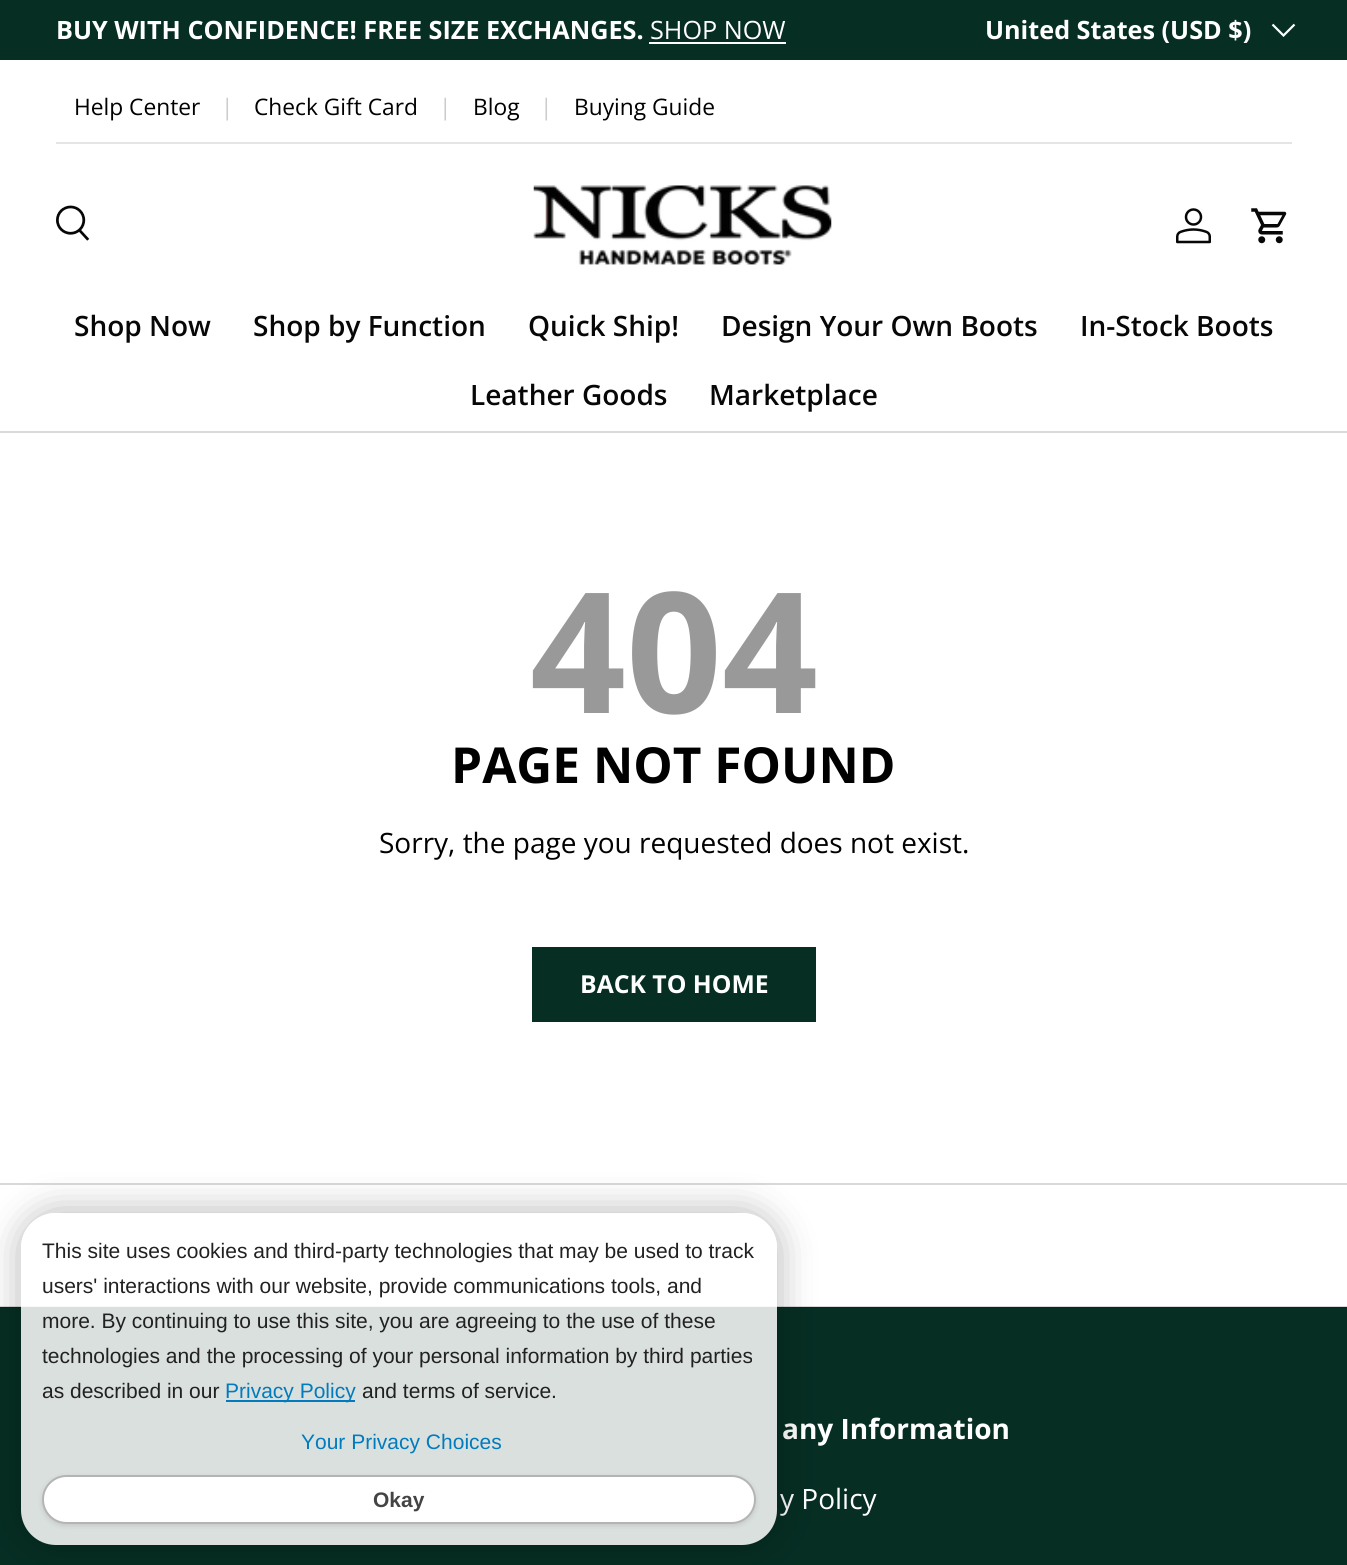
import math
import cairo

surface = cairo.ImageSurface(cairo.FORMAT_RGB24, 1347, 1565)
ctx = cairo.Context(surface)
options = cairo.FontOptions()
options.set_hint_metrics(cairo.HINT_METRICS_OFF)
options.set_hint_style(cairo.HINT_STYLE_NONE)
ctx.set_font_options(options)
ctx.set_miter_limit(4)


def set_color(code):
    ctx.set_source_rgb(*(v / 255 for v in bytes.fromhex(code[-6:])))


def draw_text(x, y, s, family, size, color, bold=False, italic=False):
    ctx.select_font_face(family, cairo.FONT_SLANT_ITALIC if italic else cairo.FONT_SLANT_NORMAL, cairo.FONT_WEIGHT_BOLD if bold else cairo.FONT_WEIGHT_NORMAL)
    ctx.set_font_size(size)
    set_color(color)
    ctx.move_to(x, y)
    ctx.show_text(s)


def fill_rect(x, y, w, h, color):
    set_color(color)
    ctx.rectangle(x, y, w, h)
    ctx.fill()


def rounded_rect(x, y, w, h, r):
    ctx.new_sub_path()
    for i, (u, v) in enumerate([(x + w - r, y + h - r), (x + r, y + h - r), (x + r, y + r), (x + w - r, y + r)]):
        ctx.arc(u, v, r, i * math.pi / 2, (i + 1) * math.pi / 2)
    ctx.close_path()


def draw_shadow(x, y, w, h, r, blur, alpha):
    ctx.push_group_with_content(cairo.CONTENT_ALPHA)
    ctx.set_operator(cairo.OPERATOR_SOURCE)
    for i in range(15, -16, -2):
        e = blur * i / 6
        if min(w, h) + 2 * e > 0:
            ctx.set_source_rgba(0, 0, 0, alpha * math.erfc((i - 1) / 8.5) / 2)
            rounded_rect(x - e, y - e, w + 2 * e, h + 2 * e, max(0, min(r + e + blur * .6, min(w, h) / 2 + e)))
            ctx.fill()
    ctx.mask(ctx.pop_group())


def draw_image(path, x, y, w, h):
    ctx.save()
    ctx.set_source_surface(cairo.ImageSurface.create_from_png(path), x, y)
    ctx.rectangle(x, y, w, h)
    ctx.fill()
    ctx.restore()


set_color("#ffffff")
ctx.paint()
fill_rect(0, 1306, 1347, 1, "#d9d9d9")
fill_rect(0, 0, 1347, 60, "#062e23")
draw_text(56, 39, "BUY WITH CONFIDENCE! FREE SIZE EXCHANGES.", "Open Sans", 25.2, "#ffffff", bold=True)
draw_text(650, 39, "SHOP NOW", "Open Sans", 25.2, "#ffffff")
fill_rect(649, 42, 137, 2, "#ffffff")
draw_text(985, 39, "United States (USD $)", "Open Sans", 25.2, "#ffffff", bold=True)
ctx.new_path()
ctx.move_to(1294.5, 24.5)
ctx.line_to(1283.5, 35.5)
ctx.line_to(1272.5, 24.5)
ctx.set_line_width(2.2)
ctx.stroke()
fill_rect(56, 142, 1236, 2, "#e5e5e5")
draw_text(74, 115, "Help Center", "Open Sans", 22.75, "#000000")
draw_text(221, 115, "|", "Open Sans", 22.75, "#cccccc")
draw_text(254, 115, "Check Gift Card", "Open Sans", 22.75, "#000000")
draw_text(439, 115, "|", "Open Sans", 22.75, "#cccccc")
draw_text(473, 115, "Blog", "Open Sans", 22.75, "#000000")
draw_text(540, 115, "|", "Open Sans", 22.75, "#cccccc")
draw_text(574, 115, "Buying Guide", "Open Sans", 22.75, "#000000")
fill_rect(0, 431, 1347, 2, "#dadada")
draw_image("assets/img1.png", 56, 205, 34, 36)
draw_image("assets/img2.png", 533, 185, 299, 80)
draw_image("assets/img3.png", 1176, 208, 35, 36)
draw_image("assets/img4.png", 1251, 208, 36, 36)
draw_text(74, 336, "Shop Now", "Open Sans SemiBold", 28, "#070707")
draw_text(253, 336, "Shop by Function", "Open Sans SemiBold", 28, "#070707")
draw_text(528, 336, "Quick Ship!", "Open Sans SemiBold", 28, "#070707")
draw_text(721, 336, "Design Your Own Boots", "Open Sans SemiBold", 28, "#070707")
draw_text(1080, 336, "In-Stock Boots", "Open Sans SemiBold", 28, "#070707")
draw_text(470, 405, "Leather Goods", "Open Sans SemiBold", 28, "#070707")
draw_text(709, 405, "Marketplace", "Open Sans SemiBold", 28, "#070707")
draw_text(530, 713, "404", "Open Sans", 168, "#999999", bold=True)
draw_text(451, 783, "PAGE NOT FOUND", "Open Sans", 49.6, "#000000", bold=True)
draw_text(379, 853, "Sorry, the page you requested does not exist.", "Open Sans", 28, "#000000")
gradient = cairo.LinearGradient(-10, 884, 798, 1085)
gradient.add_color_stop_rgba(0.6, 0.188, 0.341, 0.302, 1)
gradient.add_color_stop_rgba(0.6, 0.024, 0.18, 0.137, 1)
gradient.add_color_stop_rgba(1, 0.024, 0.18, 0.137, 1)
ctx.set_source(gradient)
ctx.rectangle(534, 949, 280, 71)
ctx.fill()
ctx.rectangle(533, 948, 282, 73)
set_color("#062e23")
ctx.set_line_width(2)
ctx.stroke()
draw_text(580, 993, "BACK TO HOME", "Open Sans", 24.75, "#ffffff", bold=True)
fill_rect(0, 1183, 1347, 2, "#d9d9d9")
fill_rect(0, 1308, 1347, 257, "#062e23")
fill_rect(0, 1307, 1347, 1, "#05271e")
draw_text(782, 1439, "any Information", "Open Sans", 28, "#ffffff", bold=True)
draw_text(780, 1509, "y Policy", "Open Sans", 28, "#ffffff")
ctx.save()
ctx.set_fill_rule(cairo.FILL_RULE_EVEN_ODD)
ctx.new_path()
ctx.move_to(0, 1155)
ctx.line_to(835, 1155)
ctx.line_to(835, 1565)
ctx.line_to(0, 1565)
ctx.close_path()
ctx.move_to(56, 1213)
ctx.line_to(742, 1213)
ctx.curve_to(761.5, 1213, 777, 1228.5, 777, 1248)
ctx.line_to(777, 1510)
ctx.curve_to(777, 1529.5, 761.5, 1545, 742, 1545)
ctx.line_to(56, 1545)
ctx.curve_to(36.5, 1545, 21, 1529.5, 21, 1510)
ctx.line_to(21, 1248)
ctx.curve_to(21, 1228.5, 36.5, 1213, 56, 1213)
ctx.close_path()
ctx.clip()
set_color("#000000")
draw_shadow(18, 1209, 763, 340, 39, 17.5, 0.25)
ctx.restore()
ctx.set_source_rgba(1, 1, 1, 0.85)
rounded_rect(21, 1213, 756, 332, 35)
ctx.fill()
draw_text(42, 1258, "This site uses cookies and third-party technologies that may be used to track", "Liberation Sans", 21, "#212121")
draw_text(42, 1293, "users' interactions with our website, provide communications tools, and", "Liberation Sans", 21, "#212121")
draw_text(42, 1328, "more. By continuing to use this site, you are agreeing to the use of these", "Liberation Sans", 21, "#212121")
draw_text(42, 1363, "technologies and the processing of your personal information by third parties", "Liberation Sans", 21, "#212121")
draw_text(42, 1398, "as described in our", "Liberation Sans", 21, "#212121")
fill_rect(226, 1400, 129, 2, "#007bbd")
draw_text(225, 1398, "Privacy Policy", "Liberation Sans", 21, "#007bbd")
draw_text(362, 1398, "and terms of service.", "Liberation Sans", 21, "#212121")
draw_text(301, 1449, "Your Privacy Choices", "Liberation Sans", 21, "#007bbd")
set_color("#000000")
draw_shadow(42, 1477, 714, 49, 24.5, 2.5, 0.1)
set_color("#ffffff")
rounded_rect(43, 1476, 712, 47, 23.5)
ctx.fill_preserve()
set_color("#b4b4b4")
ctx.stroke()
draw_text(373, 1507, "Okay", "Liberation Sans", 21, "#444444", bold=True)
surface.write_to_png("output.png")
